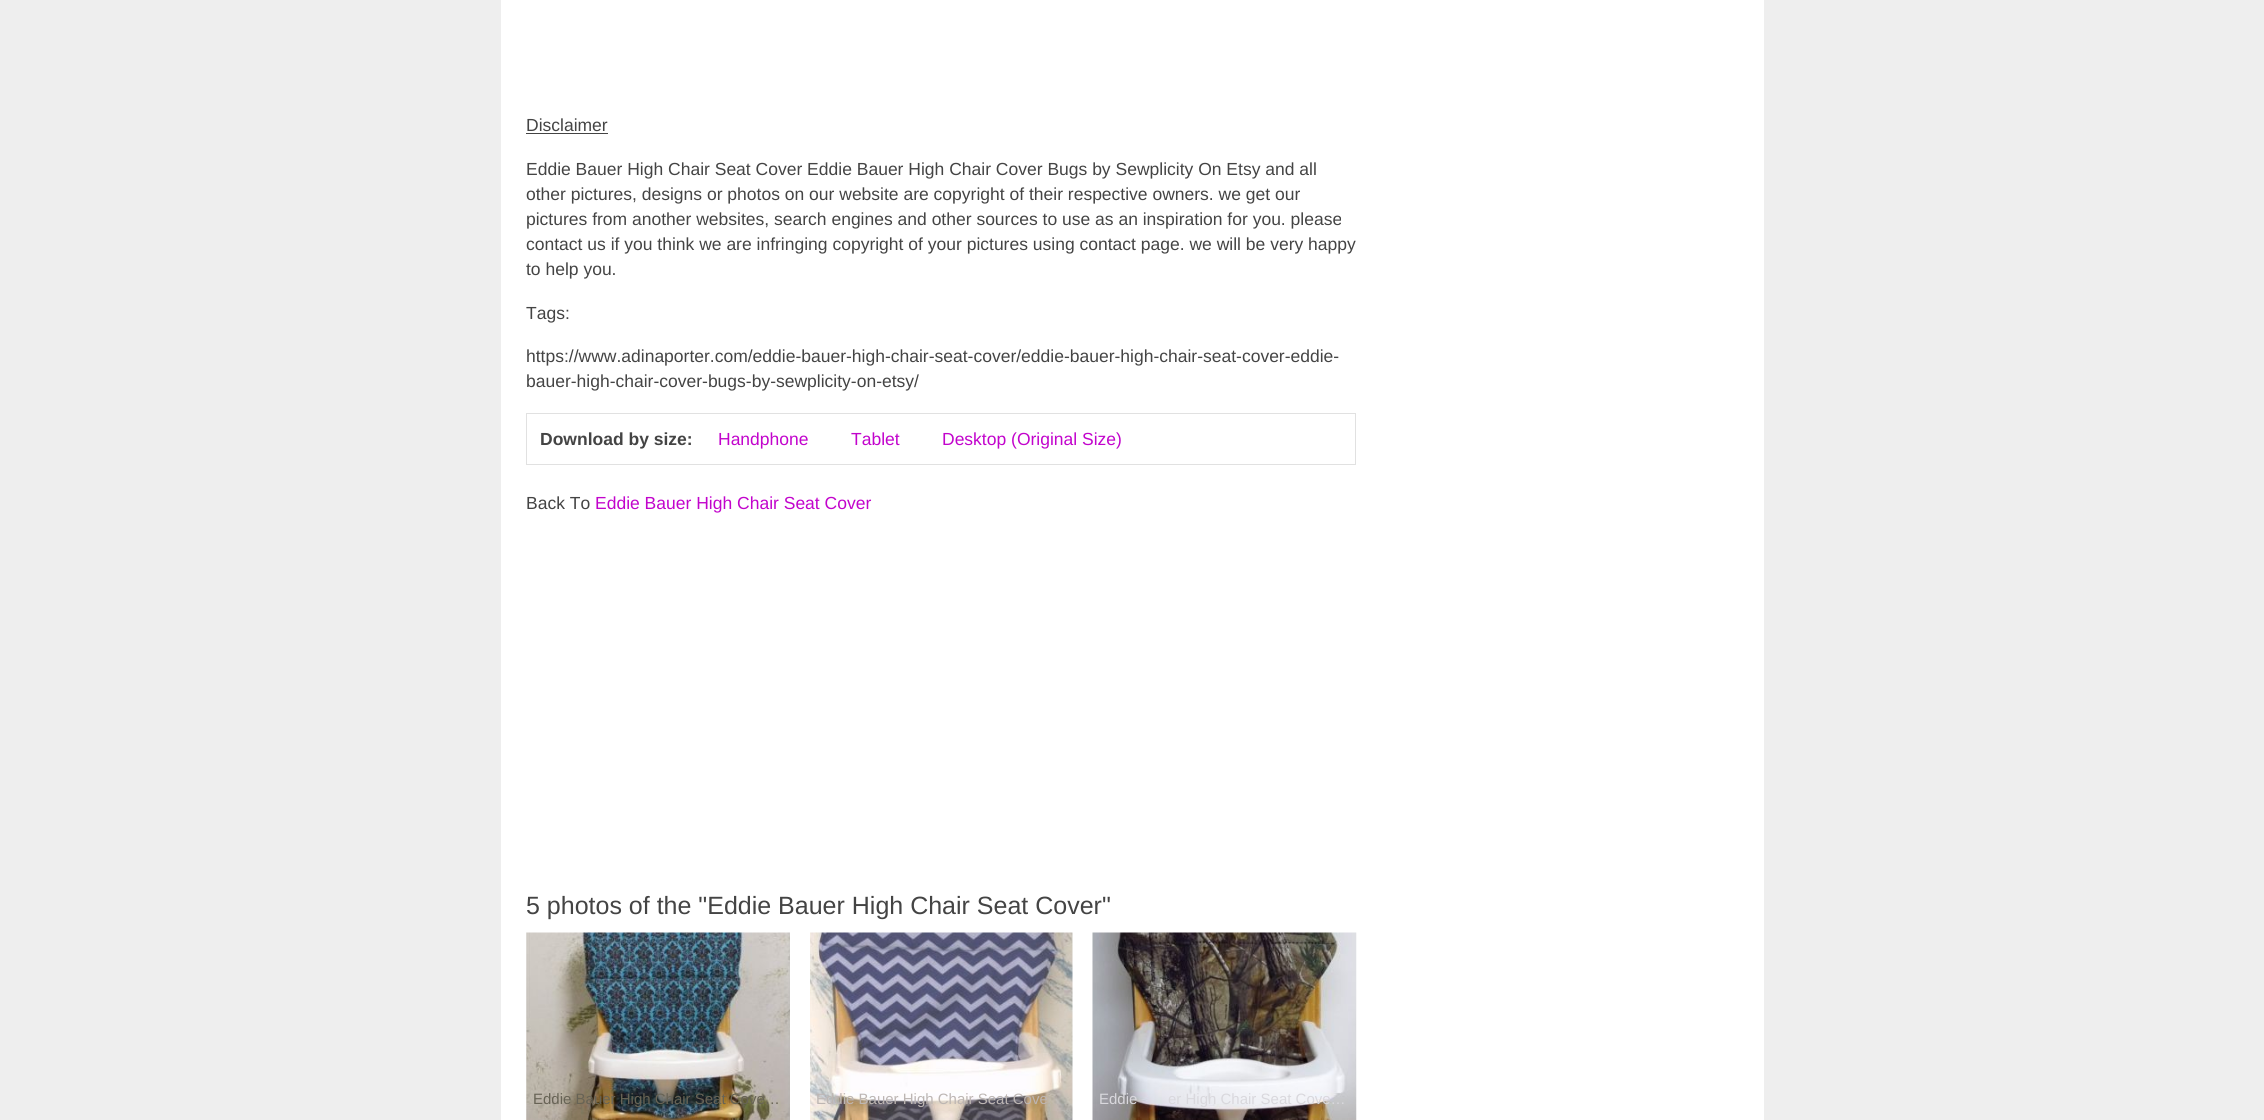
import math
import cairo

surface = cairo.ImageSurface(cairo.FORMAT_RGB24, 2264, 1120)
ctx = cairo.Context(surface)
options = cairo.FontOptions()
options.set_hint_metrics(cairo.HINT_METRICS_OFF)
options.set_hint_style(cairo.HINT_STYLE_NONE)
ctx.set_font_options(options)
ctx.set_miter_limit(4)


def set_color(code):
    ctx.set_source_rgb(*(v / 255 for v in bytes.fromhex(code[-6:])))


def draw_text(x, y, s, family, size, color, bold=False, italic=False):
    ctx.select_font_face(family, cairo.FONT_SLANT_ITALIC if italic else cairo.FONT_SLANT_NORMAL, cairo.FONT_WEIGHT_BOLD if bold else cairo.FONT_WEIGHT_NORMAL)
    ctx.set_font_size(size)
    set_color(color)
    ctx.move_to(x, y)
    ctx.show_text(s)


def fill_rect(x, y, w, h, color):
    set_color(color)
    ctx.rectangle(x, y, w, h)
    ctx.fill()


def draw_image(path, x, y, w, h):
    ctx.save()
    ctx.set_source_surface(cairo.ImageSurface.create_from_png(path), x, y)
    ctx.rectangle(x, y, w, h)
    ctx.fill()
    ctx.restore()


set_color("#eeeeee")
ctx.paint()
fill_rect(501, 0, 1263, 1120, "#ffffff")
draw_text(526, 131, "Disclaimer", "Liberation Sans", 17.5, "#444444")
fill_rect(526, 133, 82, 1, "#444444")
draw_text(526, 175, "Eddie Bauer High Chair Seat Cover Eddie Bauer High Chair Cover Bugs by Sewplicity On Etsy and all", "Liberation Sans", 17.5, "#444444")
draw_text(526, 200, "other pictures, designs or photos on our website are copyright of their respective owners. we get our", "Liberation Sans", 17.5, "#444444")
draw_text(526, 225, "pictures from another websites, search engines and other sources to use as an inspiration for you. please", "Liberation Sans", 17.5, "#444444")
draw_text(526, 250, "contact us if you think we are infringing copyright of your pictures using contact page. we will be very happy", "Liberation Sans", 17.5, "#444444")
draw_text(526, 275, "to help you.", "Liberation Sans", 17.5, "#444444")
draw_text(526, 319, "Tags:", "Liberation Sans", 17.5, "#444444")
draw_text(526, 362, "https://www.adinaporter.com/eddie-bauer-high-chair-seat-cover/eddie-bauer-high-chair-seat-cover-eddie-", "Liberation Sans", 17.5, "#444444")
draw_text(526, 387, "bauer-high-chair-cover-bugs-by-sewplicity-on-etsy/", "Liberation Sans", 17.5, "#444444")
ctx.rectangle(526.5, 413.5, 829, 51)
set_color("#e1e1e1")
ctx.set_line_width(1)
ctx.stroke()
draw_text(540, 445, "Download by size:", "Liberation Sans", 17.5, "#444444", bold=True)
draw_text(718, 445, "Handphone", "Liberation Sans", 17.5, "#c204cc")
draw_text(851, 445, "Tablet", "Liberation Sans", 17.5, "#c204cc")
draw_text(942, 445, "Desktop (Original Size)", "Liberation Sans", 17.5, "#c204cc")
draw_text(526, 509, "Back To", "Liberation Sans", 17.5, "#444444")
draw_text(595, 509, "Eddie Bauer High Chair Seat Cover", "Liberation Sans", 17.5, "#c204cc")
draw_text(526, 914, "5 photos of the \"Eddie Bauer High Chair Seat Cover\"", "Liberation Sans", 25, "#444444")
draw_image("assets/img1.png", 526, 932, 264, 188)
draw_text(533, 1104, "Eddie Bauer High Chair Seat Cove…", "Liberation Sans", 15, "#676355")
draw_image("assets/img2.png", 810, 932, 263, 188)
draw_text(816, 1104, "Eddie Bauer High Chair Seat Cove", "Liberation Sans", 15, "#bdb6b3")
draw_image("assets/img3.png", 1092, 932, 265, 188)
draw_text(1099, 1104, "Eddie", "Liberation Sans", 15, "#d9d8dd")
draw_text(1168, 1104, "er High Chair Seat Cove…", "Liberation Sans", 15, "#d9d8dd")
surface.write_to_png("output.png")
